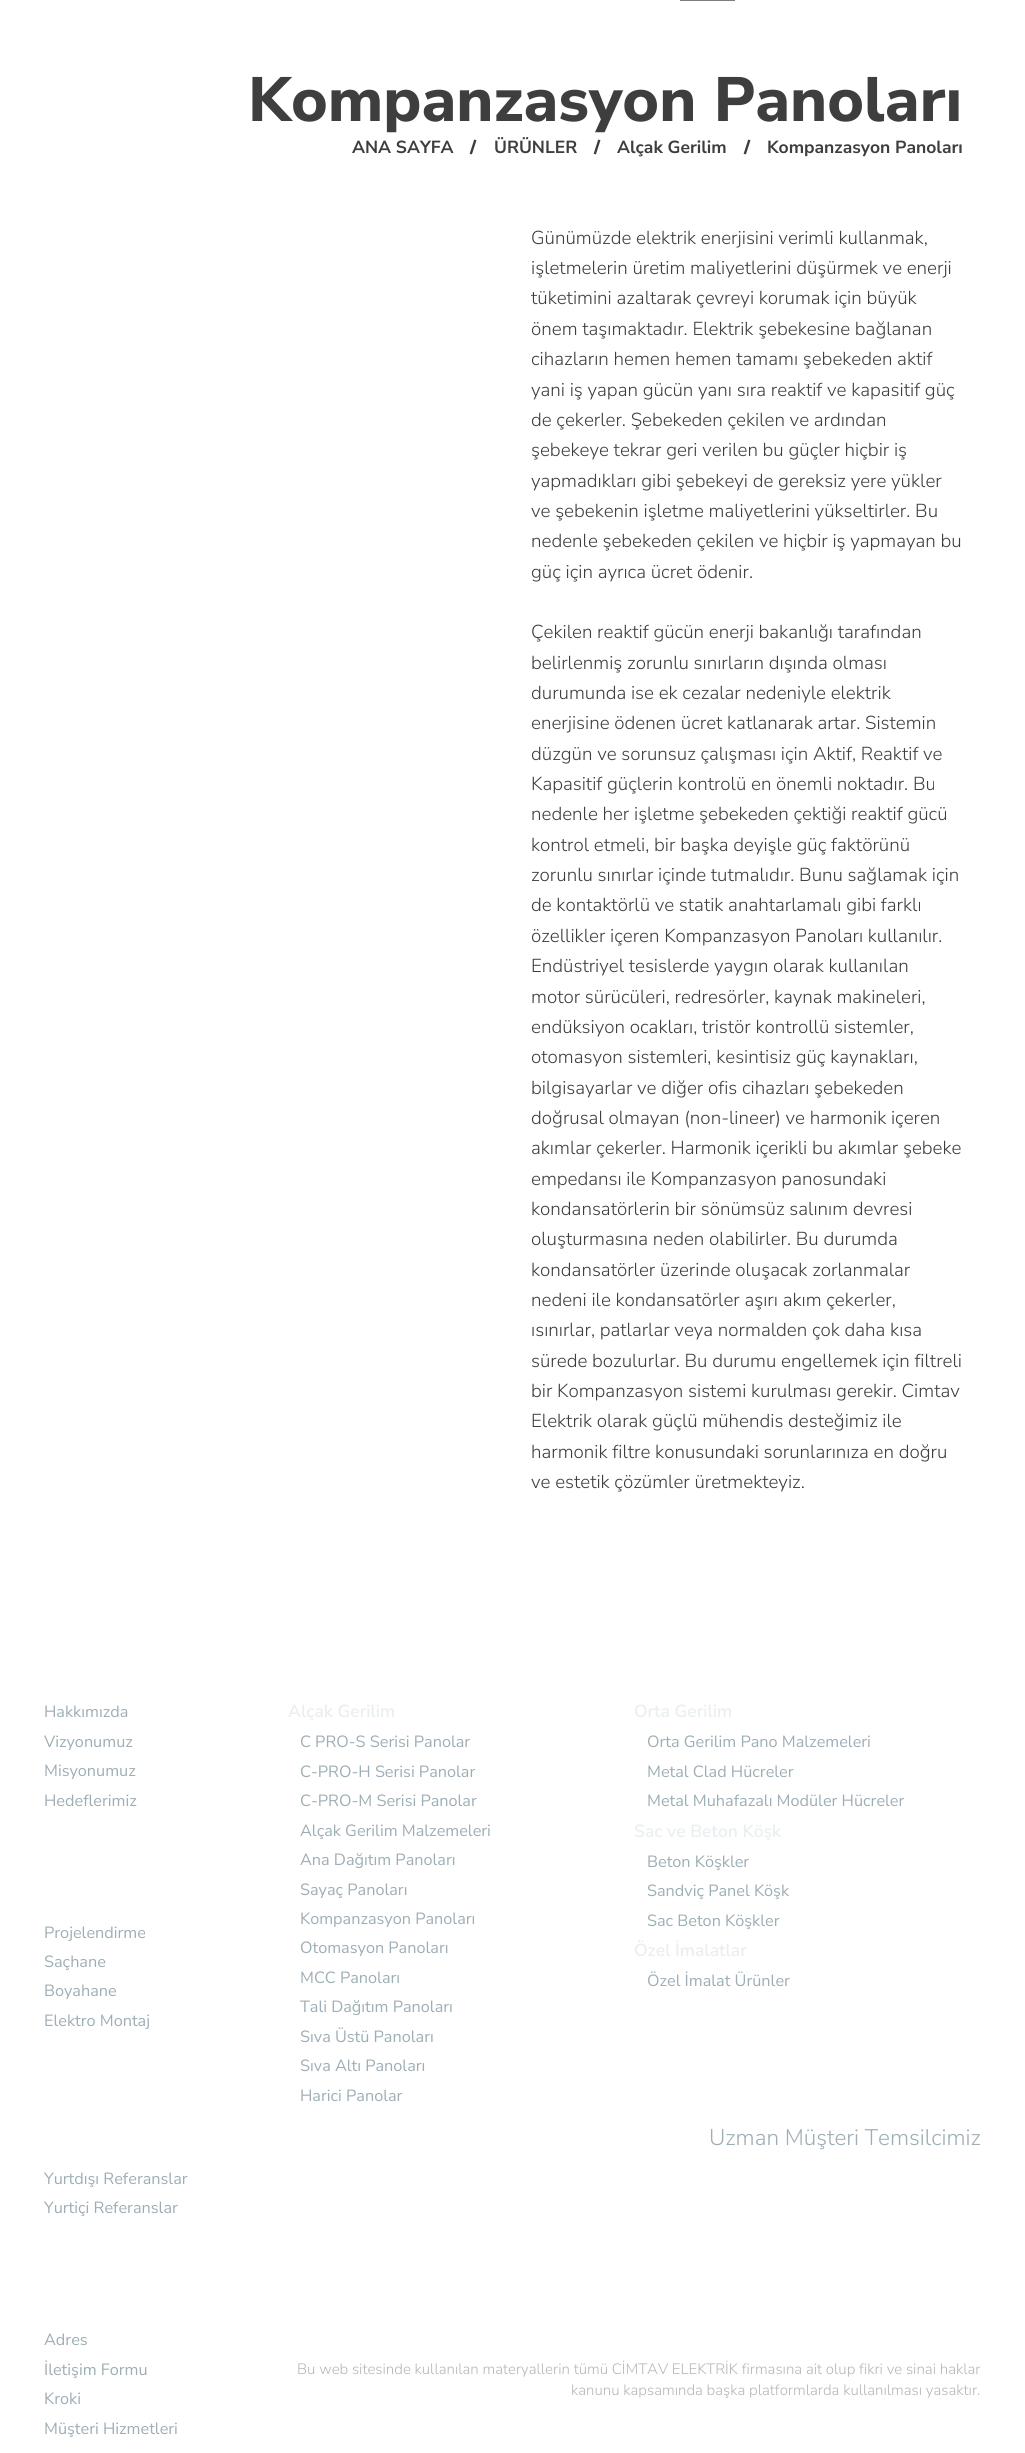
import math
import cairo

surface = cairo.ImageSurface(cairo.FORMAT_RGB24, 1025, 2453)
ctx = cairo.Context(surface)
options = cairo.FontOptions()
options.set_hint_metrics(cairo.HINT_METRICS_OFF)
options.set_hint_style(cairo.HINT_STYLE_NONE)
ctx.set_font_options(options)
ctx.set_miter_limit(4)


def set_color(code):
    ctx.set_source_rgb(*(v / 255 for v in bytes.fromhex(code[-6:])))


def draw_text(x, y, s, family, size, color, bold=False, italic=False):
    ctx.select_font_face(family, cairo.FONT_SLANT_ITALIC if italic else cairo.FONT_SLANT_NORMAL, cairo.FONT_WEIGHT_BOLD if bold else cairo.FONT_WEIGHT_NORMAL)
    ctx.set_font_size(size)
    set_color(color)
    ctx.move_to(x, y)
    ctx.show_text(s)


set_color("#ffffff")
ctx.paint()
ctx.rectangle(680.5, -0.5, 54, 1)
set_color("#7d7d7d")
ctx.set_line_width(1)
ctx.stroke()
draw_text(248, 121, "Kompanzasyon Panoları", "Nunito Sans ExtraBold", 62.5, "#3e3e3e")
draw_text(352, 153, "ANA SAYFA", "Nunito Sans", 17.5, "#3e3e3e", bold=True)
draw_text(470, 153, "/", "Nunito Sans Black", 17.5, "#3e3e3e")
draw_text(494, 153, "ÜRÜNLER", "Nunito Sans", 17.5, "#3e3e3e", bold=True)
draw_text(594, 153, "/", "Nunito Sans Black", 17.5, "#3e3e3e")
draw_text(617, 153, "Alçak Gerilim", "Nunito Sans", 17.5, "#3e3e3e", bold=True)
draw_text(744, 153, "/", "Nunito Sans Black", 17.5, "#3e3e3e")
draw_text(767, 153, "Kompanzasyon Panoları", "Nunito Sans", 17.5, "#3e3e3e", bold=True)
draw_text(531, 244, "Günümüzde elektrik enerjisini verimli kullanmak,", "Nunito Sans Light", 18.75, "#3e3e3e")
draw_text(531, 274, "işletmelerin üretim maliyetlerini düşürmek ve enerji", "Nunito Sans Light", 18.75, "#3e3e3e")
draw_text(531, 304, "tüketimini azaltarak çevreyi korumak için büyük", "Nunito Sans Light", 18.75, "#3e3e3e")
draw_text(531, 335, "önem taşımaktadır. Elektrik şebekesine bağlanan", "Nunito Sans Light", 18.75, "#3e3e3e")
draw_text(531, 365, "cihazların hemen hemen tamamı şebekeden aktif", "Nunito Sans Light", 18.75, "#3e3e3e")
draw_text(531, 396, "yani iş yapan gücün yanı sıra reaktif ve kapasitif güç", "Nunito Sans Light", 18.75, "#3e3e3e")
draw_text(531, 426, "de çekerler. Şebekeden çekilen ve ardından", "Nunito Sans Light", 18.75, "#3e3e3e")
draw_text(531, 456, "şebekeye tekrar geri verilen bu güçler hiçbir iş", "Nunito Sans Light", 18.75, "#3e3e3e")
draw_text(531, 487, "yapmadıkları gibi şebekeyi de gereksiz yere yükler", "Nunito Sans Light", 18.75, "#3e3e3e")
draw_text(531, 517, "ve şebekenin işletme maliyetlerini yükseltirler. Bu", "Nunito Sans Light", 18.75, "#3e3e3e")
draw_text(531, 547, "nedenle şebekeden çekilen ve hiçbir iş yapmayan bu", "Nunito Sans Light", 18.75, "#3e3e3e")
draw_text(531, 578, "güç için ayrıca ücret ödenir.", "Nunito Sans Light", 18.75, "#3e3e3e")
draw_text(531, 638, "Çekilen reaktif gücün enerji bakanlığı tarafından", "Nunito Sans Light", 18.75, "#3e3e3e")
draw_text(531, 669, "belirlenmiş zorunlu sınırların dışında olması", "Nunito Sans Light", 18.75, "#3e3e3e")
draw_text(531, 699, "durumunda ise ek cezalar nedeniyle elektrik", "Nunito Sans Light", 18.75, "#3e3e3e")
draw_text(531, 729, "enerjisine ödenen ücret katlanarak artar. Sistemin", "Nunito Sans Light", 18.75, "#3e3e3e")
draw_text(531, 760, "düzgün ve sorunsuz çalışması için Aktif, Reaktif ve", "Nunito Sans Light", 18.75, "#3e3e3e")
draw_text(531, 790, "Kapasitif güçlerin kontrolü en önemli noktadır. Bu", "Nunito Sans Light", 18.75, "#3e3e3e")
draw_text(531, 820, "nedenle her işletme şebekeden çektiği reaktif gücü", "Nunito Sans Light", 18.75, "#3e3e3e")
draw_text(531, 851, "kontrol etmeli, bir başka deyişle güç faktörünü", "Nunito Sans Light", 18.75, "#3e3e3e")
draw_text(531, 881, "zorunlu sınırlar içinde tutmalıdır. Bunu sağlamak için", "Nunito Sans Light", 18.75, "#3e3e3e")
draw_text(531, 911, "de kontaktörlü ve statik anahtarlamalı gibi farklı", "Nunito Sans Light", 18.75, "#3e3e3e")
draw_text(531, 942, "özellikler içeren Kompanzasyon Panoları kullanılır.", "Nunito Sans Light", 18.75, "#3e3e3e")
draw_text(531, 972, "Endüstriyel tesislerde yaygın olarak kullanılan", "Nunito Sans Light", 18.75, "#3e3e3e")
draw_text(531, 1003, "motor sürücüleri, redresörler, kaynak makineleri,", "Nunito Sans Light", 18.75, "#3e3e3e")
draw_text(531, 1033, "endüksiyon ocakları, tristör kontrollü sistemler,", "Nunito Sans Light", 18.75, "#3e3e3e")
draw_text(531, 1063, "otomasyon sistemleri, kesintisiz güç kaynakları,", "Nunito Sans Light", 18.75, "#3e3e3e")
draw_text(531, 1094, "bilgisayarlar ve diğer ofis cihazları şebekeden", "Nunito Sans Light", 18.75, "#3e3e3e")
draw_text(531, 1124, "doğrusal olmayan (non-lineer) ve harmonik içeren", "Nunito Sans Light", 18.75, "#3e3e3e")
draw_text(531, 1154, "akımlar çekerler. Harmonik içerikli bu akımlar şebeke", "Nunito Sans Light", 18.75, "#3e3e3e")
draw_text(531, 1185, "empedansı ile Kompanzasyon panosundaki", "Nunito Sans Light", 18.75, "#3e3e3e")
draw_text(531, 1215, "kondansatörlerin bir sönümsüz salınım devresi", "Nunito Sans Light", 18.75, "#3e3e3e")
draw_text(531, 1245, "oluşturmasına neden olabilirler. Bu durumda", "Nunito Sans Light", 18.75, "#3e3e3e")
draw_text(531, 1276, "kondansatörler üzerinde oluşacak zorlanmalar", "Nunito Sans Light", 18.75, "#3e3e3e")
draw_text(531, 1306, "nedeni ile kondansatörler aşırı akım çekerler,", "Nunito Sans Light", 18.75, "#3e3e3e")
draw_text(531, 1336, "ısınırlar, patlarlar veya normalden çok daha kısa", "Nunito Sans Light", 18.75, "#3e3e3e")
draw_text(531, 1367, "sürede bozulurlar. Bu durumu engellemek için filtreli", "Nunito Sans Light", 18.75, "#3e3e3e")
draw_text(531, 1397, "bir Kompanzasyon sistemi kurulması gerekir. Cimtav", "Nunito Sans Light", 18.75, "#3e3e3e")
draw_text(531, 1427, "Elektrik olarak güçlü mühendis desteğimiz ile", "Nunito Sans Light", 18.75, "#3e3e3e")
draw_text(531, 1458, "harmonik filtre konusundaki sorunlarınıza en doğru", "Nunito Sans Light", 18.75, "#3e3e3e")
draw_text(531, 1488, "ve estetik çözümler üretmekteyiz.", "Nunito Sans Light", 18.75, "#3e3e3e")
draw_text(44, 1717, "Hakkımızda", "Nunito Sans", 16.25, "#9eaeb6")
draw_text(44, 1747, "Vizyonumuz", "Nunito Sans", 16.25, "#9eaeb6")
draw_text(44, 1776, "Misyonumuz", "Nunito Sans", 16.25, "#9eaeb6")
draw_text(44, 1806, "Hedeflerimiz", "Nunito Sans", 16.25, "#9eaeb6")
draw_text(44, 1938, "Projelendirme", "Nunito Sans", 16.25, "#9eaeb6")
draw_text(44, 1967, "Saçhane", "Nunito Sans", 16.25, "#9eaeb6")
draw_text(44, 1996, "Boyahane", "Nunito Sans", 16.25, "#9eaeb6")
draw_text(44, 2026, "Elektro Montaj", "Nunito Sans", 16.25, "#9eaeb6")
draw_text(288, 1717, "Alçak Gerilim", "Nunito Sans SemiBold", 17.5, "#e9eef0")
draw_text(300, 1747, "C PRO-S Serisi Panolar", "Nunito Sans", 16.25, "#9eaeb6")
draw_text(300, 1777, "C-PRO-H Serisi Panolar", "Nunito Sans", 16.25, "#9eaeb6")
draw_text(300, 1806, "C-PRO-M Serisi Panolar", "Nunito Sans", 16.25, "#9eaeb6")
draw_text(300, 1836, "Alçak Gerilim Malzemeleri", "Nunito Sans", 16.25, "#9eaeb6")
draw_text(300, 1865, "Ana Dağıtım Panoları", "Nunito Sans", 16.25, "#9eaeb6")
draw_text(300, 1895, "Sayaç Panoları", "Nunito Sans", 16.25, "#9eaeb6")
draw_text(300, 1924, "Kompanzasyon Panoları", "Nunito Sans", 16.25, "#9eaeb6")
draw_text(300, 1953, "Otomasyon Panoları", "Nunito Sans", 16.25, "#9eaeb6")
draw_text(300, 1983, "MCC Panoları", "Nunito Sans", 16.25, "#9eaeb6")
draw_text(300, 2012, "Tali Dağıtım Panoları", "Nunito Sans", 16.25, "#9eaeb6")
draw_text(300, 2042, "Sıva Üstü Panoları", "Nunito Sans", 16.25, "#9eaeb6")
draw_text(300, 2071, "Sıva Altı Panoları", "Nunito Sans", 16.25, "#9eaeb6")
draw_text(300, 2101, "Harici Panolar", "Nunito Sans", 16.25, "#9eaeb6")
draw_text(634, 1717, "Orta Gerilim", "Nunito Sans SemiBold", 17.5, "#e9eef0")
draw_text(647, 1747, "Orta Gerilim Pano Malzemeleri", "Nunito Sans", 16.25, "#9eaeb6")
draw_text(647, 1777, "Metal Clad Hücreler", "Nunito Sans", 16.25, "#9eaeb6")
draw_text(647, 1806, "Metal Muhafazalı Modüler Hücreler", "Nunito Sans", 16.25, "#9eaeb6")
draw_text(634, 1837, "Sac ve Beton Köşk", "Nunito Sans SemiBold", 17.5, "#e9eef0")
draw_text(647, 1867, "Beton Köşkler", "Nunito Sans", 16.25, "#9eaeb6")
draw_text(647, 1896, "Sandviç Panel Köşk", "Nunito Sans", 16.25, "#9eaeb6")
draw_text(647, 1926, "Sac Beton Köşkler", "Nunito Sans", 16.25, "#9eaeb6")
draw_text(634, 1956, "Özel İmalatlar", "Nunito Sans SemiBold", 17.5, "#e9eef0")
draw_text(647, 1986, "Özel İmalat Ürünler", "Nunito Sans", 16.25, "#9eaeb6")
draw_text(44, 2184, "Yurtdışı Referanslar", "Nunito Sans", 16.25, "#9eaeb6")
draw_text(44, 2213, "Yurtiçi Referanslar", "Nunito Sans", 16.25, "#9eaeb6")
draw_text(44, 2345, "Adres", "Nunito Sans", 16.25, "#9eaeb6")
draw_text(44, 2375, "İletişim Formu", "Nunito Sans", 16.25, "#9eaeb6")
draw_text(44, 2404, "Kroki", "Nunito Sans", 16.25, "#9eaeb6")
draw_text(44, 2434, "Müşteri Hizmetleri", "Nunito Sans", 16.25, "#9eaeb6")
draw_text(709, 2145, "Uzman Müşteri Temsilcimiz", "Nunito Sans Light", 22.5, "#9eaeb6")
draw_text(297, 2374, "Bu web sitesinde kullanılan materyallerin tümü CİMTAV ELEKTRİK firmasına ait olup fikri ve sinai haklar", "Nunito Sans Light", 15, "#b3b7b9")
draw_text(571, 2395, "kanunu kapsamında başka platformlarda kullanılması yasaktır.", "Nunito Sans Light", 15, "#b3b7b9")
surface.write_to_png("output.png")
